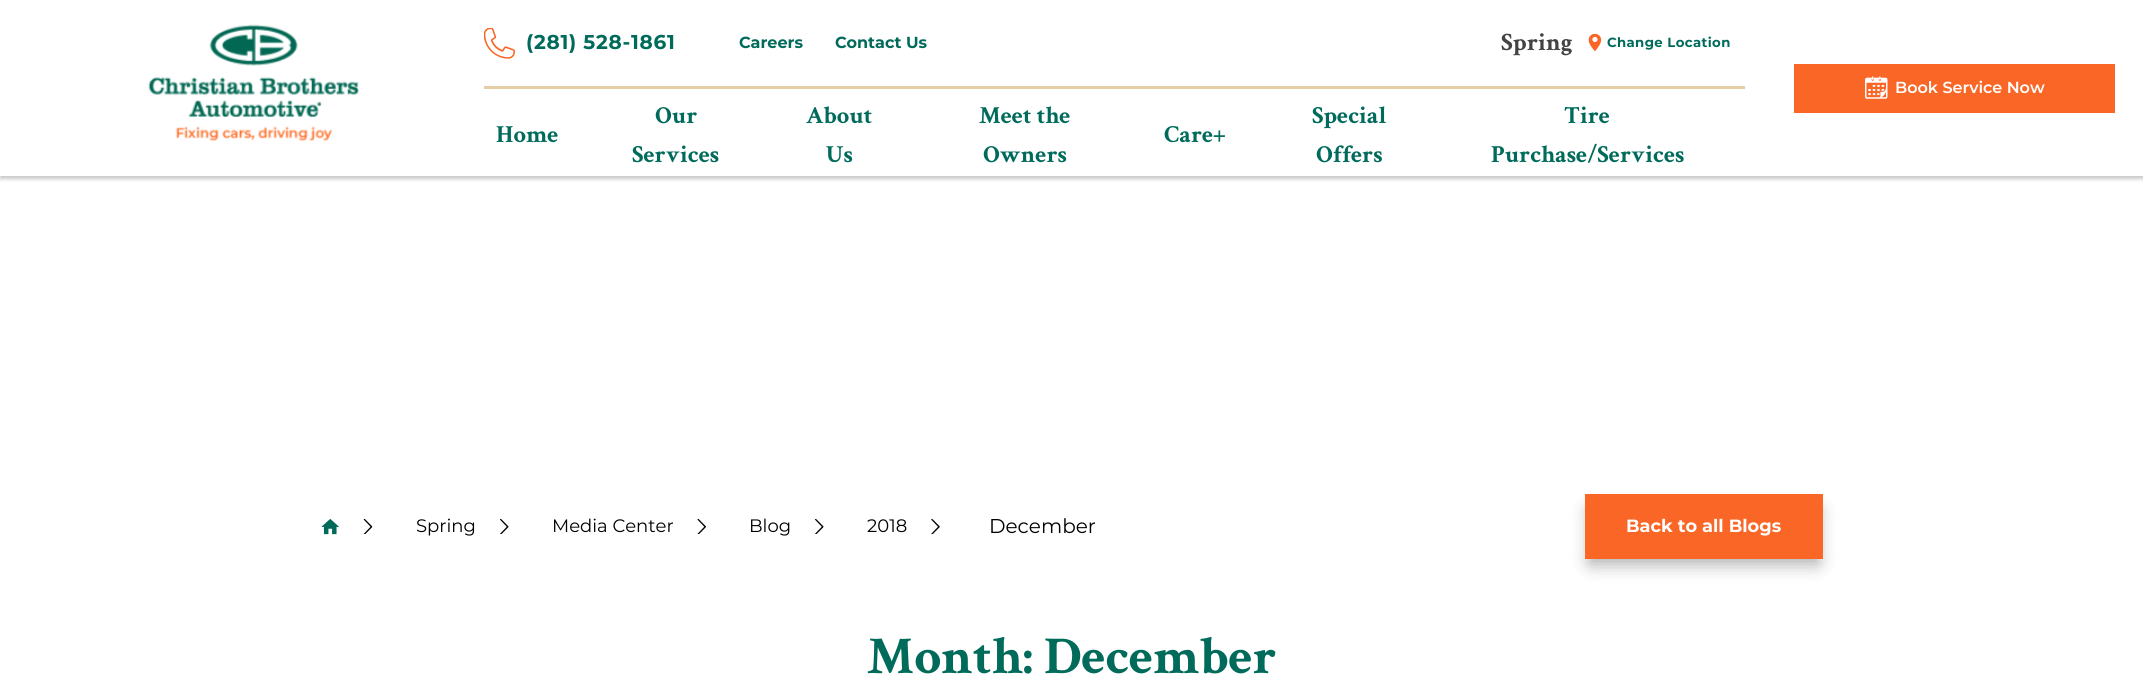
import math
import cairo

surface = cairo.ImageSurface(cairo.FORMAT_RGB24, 2143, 690)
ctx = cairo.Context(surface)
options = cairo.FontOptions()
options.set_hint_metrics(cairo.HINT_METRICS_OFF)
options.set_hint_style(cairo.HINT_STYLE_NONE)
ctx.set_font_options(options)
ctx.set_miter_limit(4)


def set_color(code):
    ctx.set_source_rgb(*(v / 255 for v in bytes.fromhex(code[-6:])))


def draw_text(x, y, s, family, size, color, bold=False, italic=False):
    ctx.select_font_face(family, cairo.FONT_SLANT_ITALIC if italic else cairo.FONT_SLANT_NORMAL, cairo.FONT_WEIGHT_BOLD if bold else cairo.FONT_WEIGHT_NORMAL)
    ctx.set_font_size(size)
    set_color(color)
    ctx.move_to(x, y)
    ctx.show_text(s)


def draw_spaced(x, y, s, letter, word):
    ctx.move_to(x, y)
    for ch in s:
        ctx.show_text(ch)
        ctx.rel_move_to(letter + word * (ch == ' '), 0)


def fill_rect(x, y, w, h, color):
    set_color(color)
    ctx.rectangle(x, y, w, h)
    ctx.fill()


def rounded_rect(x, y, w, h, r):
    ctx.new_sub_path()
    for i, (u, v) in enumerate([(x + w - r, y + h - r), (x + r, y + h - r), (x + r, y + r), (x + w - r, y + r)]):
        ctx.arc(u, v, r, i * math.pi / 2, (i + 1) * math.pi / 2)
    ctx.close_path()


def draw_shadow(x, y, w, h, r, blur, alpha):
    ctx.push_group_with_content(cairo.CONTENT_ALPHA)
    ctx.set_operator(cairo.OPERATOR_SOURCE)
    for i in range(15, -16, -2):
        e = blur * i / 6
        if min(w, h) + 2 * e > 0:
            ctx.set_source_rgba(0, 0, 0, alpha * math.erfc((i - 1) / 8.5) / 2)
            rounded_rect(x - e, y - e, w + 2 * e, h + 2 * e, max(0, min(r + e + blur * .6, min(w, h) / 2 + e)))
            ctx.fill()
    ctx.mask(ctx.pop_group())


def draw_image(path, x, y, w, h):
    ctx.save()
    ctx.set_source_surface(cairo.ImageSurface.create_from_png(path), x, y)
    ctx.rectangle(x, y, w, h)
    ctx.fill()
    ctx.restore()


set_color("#ffffff")
ctx.paint()
ctx.save()
ctx.rectangle(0, 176, 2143, 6)
ctx.clip()
set_color("#000000")
draw_shadow(0, 3, 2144, 176, 0, 2, 0.22)
ctx.restore()
draw_image("assets/img1.png", 148, 24, 211, 117)
fill_rect(484, 86, 1261, 3, "#e3cea7")
draw_image("assets/img2.png", 484, 28, 31, 31)
ctx.select_font_face("Montserrat", cairo.FONT_SLANT_NORMAL, cairo.FONT_WEIGHT_BOLD)
ctx.set_font_size(20)
set_color("#006b5b")
draw_spaced(526, 49, "(281) 528-1861", 0.75, 0)
draw_text(739, 48, "Careers", "Montserrat", 16, "#006b5b", bold=True)
draw_text(835, 48, "Contact Us", "Montserrat", 16, "#006b5b", bold=True)
draw_text(1501, 50, "Spring", "Crimson Text", 25, "#434343", bold=True)
draw_image("assets/img3.png", 1588, 34, 14, 17)
ctx.select_font_face("Montserrat", cairo.FONT_SLANT_NORMAL, cairo.FONT_WEIGHT_BOLD)
ctx.set_font_size(13.25)
set_color("#006b5b")
draw_spaced(1607, 47, "Change Location", 0.4, 0)
draw_text(496, 142, "Home", "Crimson Text", 24.5, "#006b5b", bold=True)
draw_text(655, 123, "Our", "Crimson Text", 24.5, "#006b5b", bold=True)
draw_text(632, 162, "Services", "Crimson Text", 24.5, "#006b5b", bold=True)
draw_text(806, 123, "About", "Crimson Text", 24.5, "#006b5b", bold=True)
draw_text(826, 162, "Us", "Crimson Text", 24.5, "#006b5b", bold=True)
draw_text(979, 123, "Meet the", "Crimson Text", 24.5, "#006b5b", bold=True)
draw_text(983, 162, "Owners", "Crimson Text", 24.5, "#006b5b", bold=True)
draw_text(1164, 142, "Care+", "Crimson Text", 24.5, "#006b5b", bold=True)
draw_text(1312, 123, "Special", "Crimson Text", 24.5, "#006b5b", bold=True)
draw_text(1316, 162, "Offers", "Crimson Text", 24.5, "#006b5b", bold=True)
draw_text(1564, 123, "Tire", "Crimson Text", 24.5, "#006b5b", bold=True)
draw_text(1491, 162, "Purchase/Services", "Crimson Text", 24.5, "#006b5b", bold=True)
fill_rect(1794, 64, 321, 49, "#fa6625")
draw_image("assets/img4.png", 1865, 76, 23, 23)
draw_text(1895, 93, "Book Service Now", "Montserrat SemiBold", 16, "#ffffff")
draw_image("assets/img5.png", 321, 518, 19, 17)
draw_image("assets/img6.png", 363, 519, 10, 15)
draw_text(416, 532, "Spring", "Montserrat", 18, "#000000")
draw_image("assets/img7.png", 500, 519, 9, 15)
draw_text(552, 532, "Media Center", "Montserrat", 18, "#000000")
draw_image("assets/img8.png", 697, 519, 9, 15)
draw_text(749, 532, "Blog", "Montserrat", 18, "#000000")
draw_image("assets/img7.png", 815, 519, 9, 15)
draw_text(867, 532, "2018", "Montserrat", 18, "#000000")
draw_image("assets/img9.png", 931, 519, 9, 15)
draw_text(989, 533, "December", "Montserrat", 20, "#000000")
set_color("#000000")
draw_shadow(1590, 509, 228, 55, 0, 9, 0.33)
fill_rect(1585, 494, 238, 65, "#fa6625")
draw_text(1626, 532, "Back to all Blogs", "Montserrat", 17.75, "#ffffff", bold=True)
draw_text(867, 673, "Month: December", "Crimson Text", 53.25, "#006b5b", bold=True)
surface.write_to_png("output.png")
